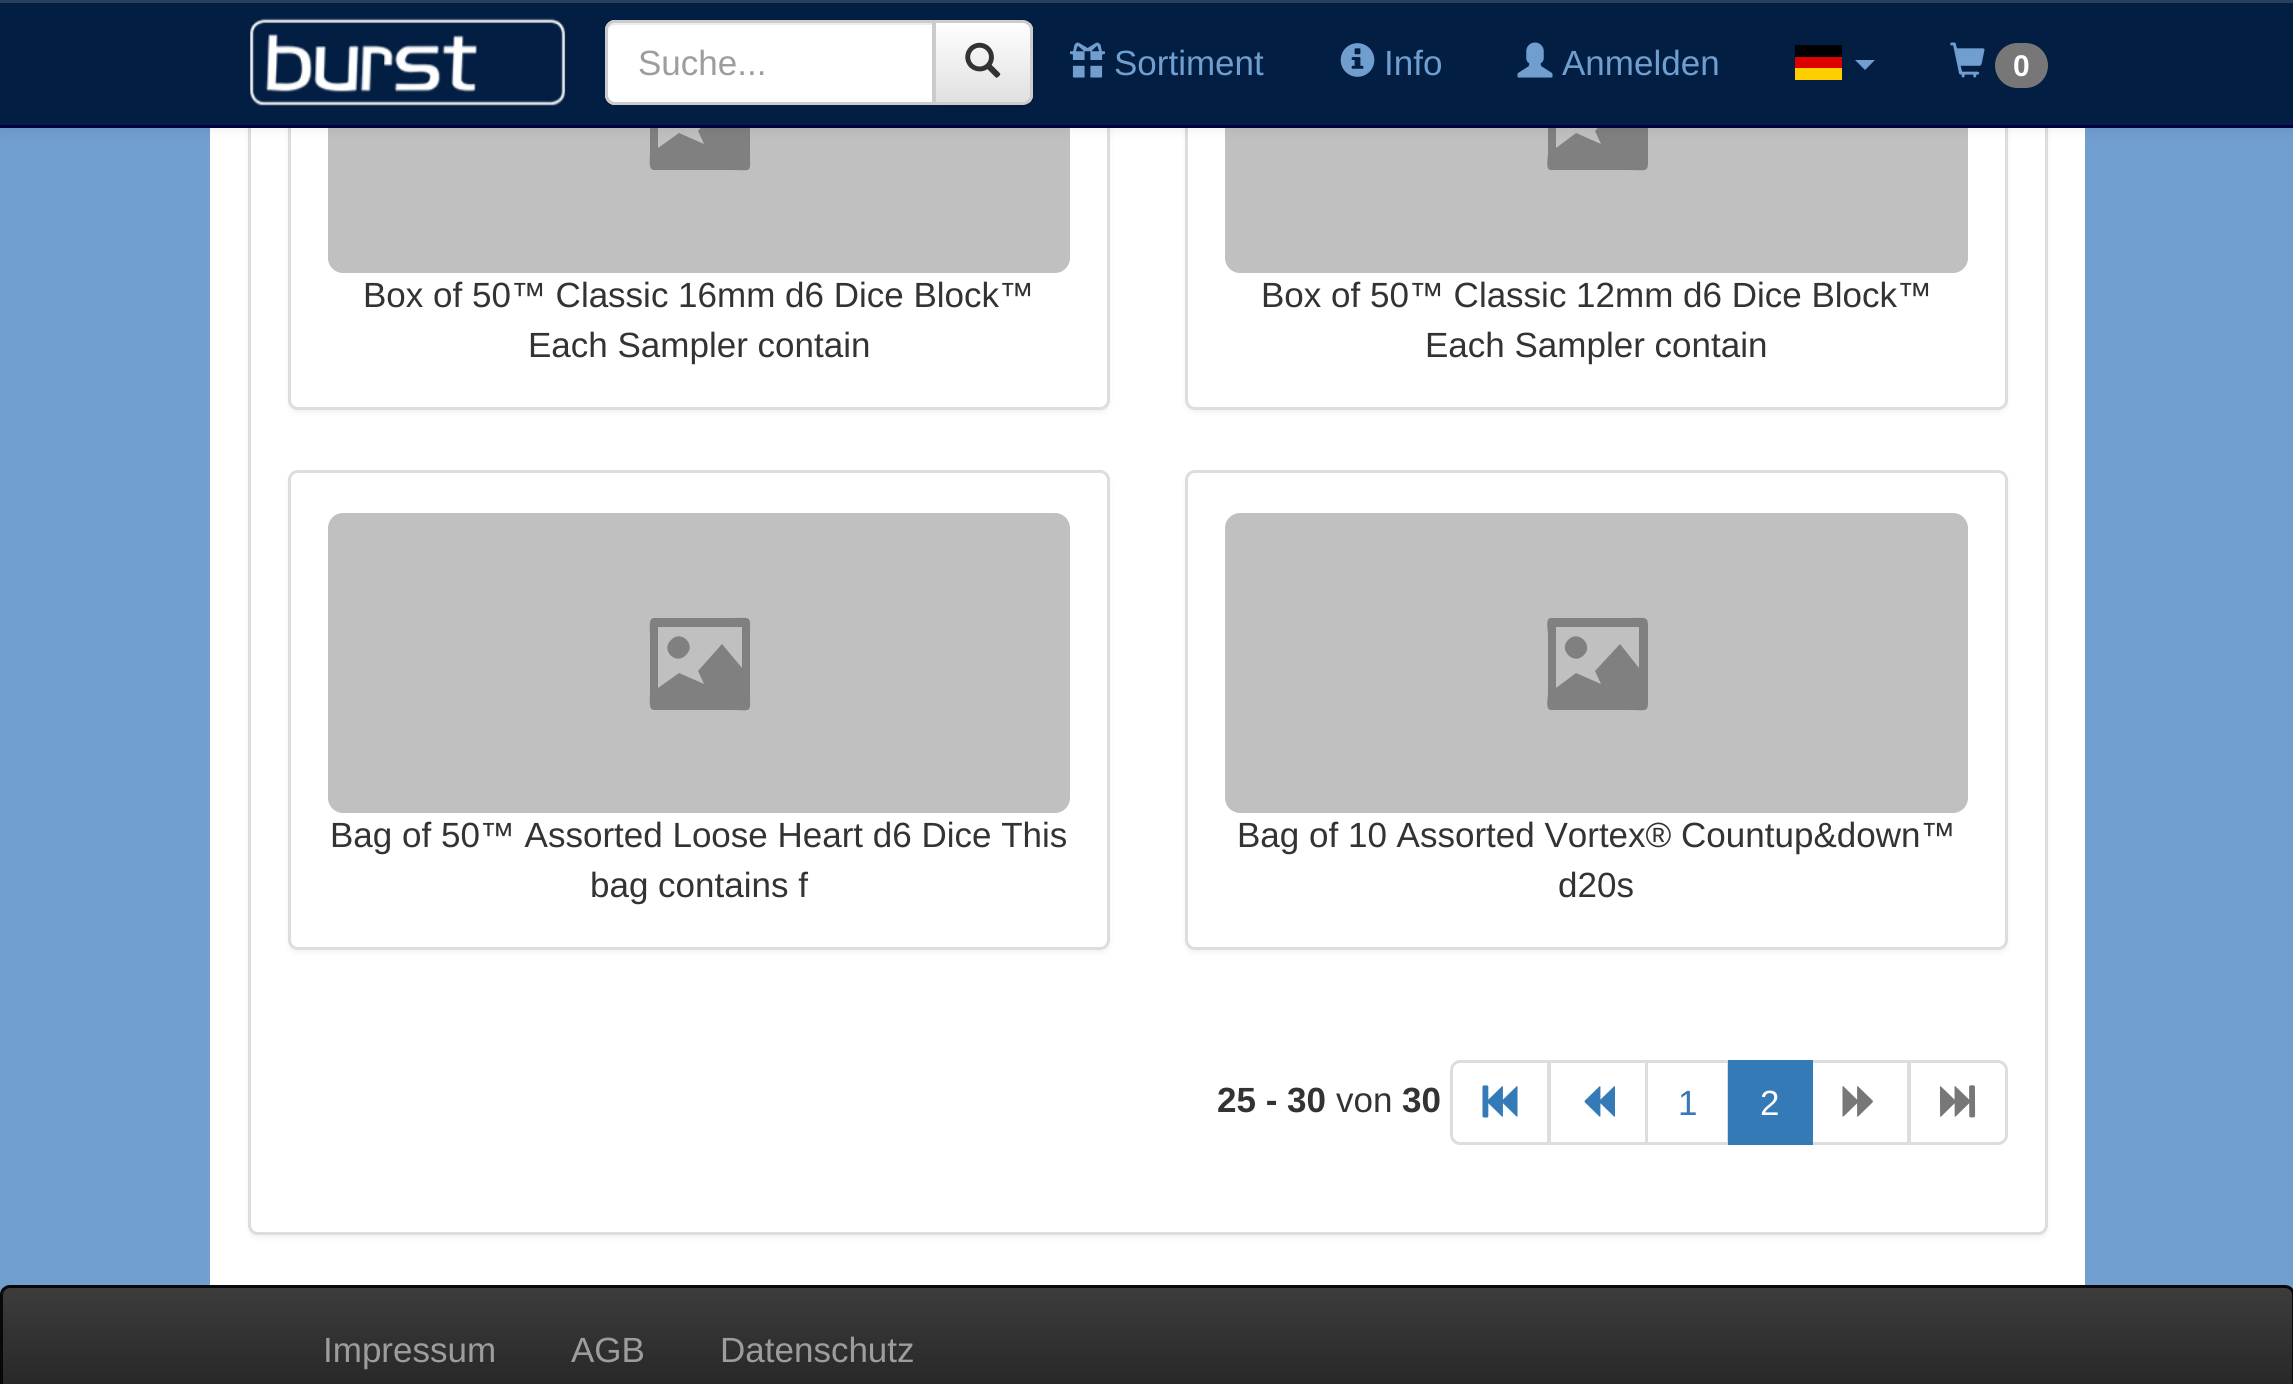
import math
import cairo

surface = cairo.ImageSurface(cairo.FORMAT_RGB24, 2293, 1384)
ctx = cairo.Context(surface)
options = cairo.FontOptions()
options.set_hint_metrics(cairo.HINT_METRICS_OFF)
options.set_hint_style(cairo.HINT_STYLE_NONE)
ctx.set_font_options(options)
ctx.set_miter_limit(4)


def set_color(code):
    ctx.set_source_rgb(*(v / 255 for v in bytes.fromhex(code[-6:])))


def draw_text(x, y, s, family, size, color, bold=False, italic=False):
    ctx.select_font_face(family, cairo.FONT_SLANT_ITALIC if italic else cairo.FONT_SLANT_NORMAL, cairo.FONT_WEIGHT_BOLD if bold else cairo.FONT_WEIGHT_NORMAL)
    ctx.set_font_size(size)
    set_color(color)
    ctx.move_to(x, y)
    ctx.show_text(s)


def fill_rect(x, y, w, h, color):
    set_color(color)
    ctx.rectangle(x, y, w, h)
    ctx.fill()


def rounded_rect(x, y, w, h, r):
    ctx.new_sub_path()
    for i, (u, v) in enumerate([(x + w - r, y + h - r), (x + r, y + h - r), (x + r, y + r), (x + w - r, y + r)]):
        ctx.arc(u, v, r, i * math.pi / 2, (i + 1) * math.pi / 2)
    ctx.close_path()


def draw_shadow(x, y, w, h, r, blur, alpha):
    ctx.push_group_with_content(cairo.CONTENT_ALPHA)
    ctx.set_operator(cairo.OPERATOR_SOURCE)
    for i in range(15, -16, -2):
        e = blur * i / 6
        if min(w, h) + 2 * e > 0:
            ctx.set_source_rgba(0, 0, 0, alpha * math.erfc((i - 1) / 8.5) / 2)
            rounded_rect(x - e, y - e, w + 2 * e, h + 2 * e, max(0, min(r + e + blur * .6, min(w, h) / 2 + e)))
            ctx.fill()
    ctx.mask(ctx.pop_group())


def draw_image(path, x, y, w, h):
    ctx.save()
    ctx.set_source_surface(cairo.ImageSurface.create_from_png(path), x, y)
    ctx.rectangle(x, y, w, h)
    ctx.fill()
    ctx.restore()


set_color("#6f9ecf")
ctx.paint()
fill_rect(210, 128, 1875, 1157, "#ffffff")
set_color("#000000")
draw_shadow(248, -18, 1800, 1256, 10, 2.5, 0.05)
set_color("#ffffff")
rounded_rect(249.5, -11.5, 1797, 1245, 8.5)
ctx.fill_preserve()
set_color("#dddddd")
ctx.set_line_width(3)
ctx.stroke()
set_color("#000000")
draw_shadow(288, -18, 822, 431, 10, 2.5, 0.05)
set_color("#ffffff")
rounded_rect(289.5, -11.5, 819, 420, 8.5)
ctx.fill_preserve()
set_color("#dddddd")
ctx.stroke()
set_color("#c0c0c0")
rounded_rect(328, -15, 742, 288, 15)
ctx.fill()
set_color("#808080")
ctx.new_path()
ctx.move_to(654, 78)
ctx.line_to(731, 78)
ctx.curve_to(753, 78, 750, 75, 750, 96)
ctx.line_to(750, 152)
ctx.curve_to(750, 174, 753, 170, 731, 170)
ctx.line_to(654, 170)
ctx.curve_to(648, 170, 650, 159, 650, 152)
ctx.line_to(650, 96)
ctx.curve_to(650, 89, 648, 78, 654, 78)
ctx.close_path()
ctx.move_to(658, 87)
ctx.line_to(658, 148)
ctx.line_to(679, 133)
ctx.line_to(704, 144)
ctx.line_to(698, 131)
ctx.line_to(722, 104)
ctx.line_to(742, 128)
ctx.line_to(742, 87)
ctx.close_path()
ctx.move_to(671, 100)
ctx.curve_to(681, 89, 697, 105, 686, 115)
ctx.curve_to(676, 126, 660, 110, 671, 100)
ctx.close_path()
ctx.fill()
set_color("#000000")
draw_shadow(1185, -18, 823, 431, 10, 2.5, 0.05)
set_color("#ffffff")
rounded_rect(1186.5, -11.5, 820, 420, 8.5)
ctx.fill_preserve()
set_color("#dddddd")
ctx.stroke()
set_color("#c0c0c0")
rounded_rect(1225, -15, 743, 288, 15)
ctx.fill()
set_color("#808080")
ctx.new_path()
ctx.move_to(1551, 78)
ctx.line_to(1628, 78)
ctx.curve_to(1650, 78, 1648, 75, 1648, 96)
ctx.line_to(1648, 152)
ctx.curve_to(1648, 174, 1650, 170, 1628, 170)
ctx.line_to(1551, 170)
ctx.curve_to(1545, 170, 1548, 159, 1548, 152)
ctx.line_to(1548, 96)
ctx.curve_to(1548, 89, 1545, 78, 1551, 78)
ctx.close_path()
ctx.move_to(1556, 87)
ctx.line_to(1556, 148)
ctx.line_to(1576, 133)
ctx.line_to(1601, 144)
ctx.line_to(1595, 131)
ctx.line_to(1620, 104)
ctx.line_to(1639, 128)
ctx.line_to(1639, 87)
ctx.close_path()
ctx.move_to(1568, 100)
ctx.curve_to(1578, 89, 1594, 105, 1584, 115)
ctx.curve_to(1574, 126, 1558, 110, 1568, 100)
ctx.close_path()
ctx.fill()
set_color("#000000")
draw_shadow(0, 3, 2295, 127, 0, 6, 0.07)
fill_rect(0, 3, 2293, 122, "#021e42")
fill_rect(0, 0, 2293, 3, "#28405e")
fill_rect(0, 125, 2293, 3, "#000044")
draw_image("assets/img1.png", 250, 18, 316, 88)
set_color("#ffffff")
ctx.new_path()
ctx.move_to(615, 20)
ctx.line_to(935, 20)
ctx.line_to(935, 105)
ctx.line_to(615, 105)
ctx.curve_to(609.5, 105, 605, 100.5, 605, 95)
ctx.line_to(605, 30)
ctx.curve_to(605, 24.5, 609.5, 20, 615, 20)
ctx.close_path()
ctx.fill()
set_color("#ececec")
ctx.new_path()
ctx.move_to(615, 25)
ctx.line_to(932, 25)
ctx.line_to(932, 103)
ctx.line_to(933, 103)
ctx.line_to(933, 23)
ctx.line_to(616, 23)
ctx.curve_to(611, 23, 608, 27, 608, 32)
ctx.curve_to(608, 28, 611, 25, 615, 25)
ctx.close_path()
ctx.fill()
ctx.new_path()
ctx.move_to(615, 21.5)
ctx.line_to(933.5, 21.5)
ctx.line_to(933.5, 103.5)
ctx.line_to(615, 103.5)
ctx.curve_to(610.5, 103.5, 606.5, 99.5, 606.5, 95)
ctx.line_to(606.5, 30)
ctx.curve_to(606.5, 25.5, 610.5, 21.5, 615, 21.5)
ctx.close_path()
set_color("#cccccc")
ctx.stroke()
draw_text(638, 75, "Suche...", "Liberation Sans", 35, "#9d9d9d")
set_color("#000000")
draw_shadow(933, 23, 100, 85, 10, 1, 0.07)
ctx.save()
ctx.new_path()
ctx.move_to(933, 20)
ctx.line_to(1023, 20)
ctx.curve_to(1028.5, 20, 1033, 24.5, 1033, 30)
ctx.line_to(1033, 95)
ctx.curve_to(1033, 100.5, 1028.5, 105, 1023, 105)
ctx.line_to(933, 105)
ctx.close_path()
ctx.clip()
gradient = cairo.LinearGradient(983, 22, 983, 103)
gradient.add_color_stop_rgba(0, 1, 1, 1, 1)
gradient.add_color_stop_rgba(1, 0.878, 0.878, 0.878, 1)
ctx.set_source(gradient)
ctx.rectangle(936, 23, 97, 80)
ctx.fill()
ctx.restore()
ctx.new_path()
ctx.move_to(934.5, 21.5)
ctx.line_to(1023, 21.5)
ctx.curve_to(1027.5, 21.5, 1031.5, 25.5, 1031.5, 30)
ctx.line_to(1031.5, 95)
ctx.curve_to(1031.5, 99.5, 1027.5, 103.5, 1023, 103.5)
ctx.line_to(934.5, 103.5)
ctx.close_path()
set_color("#cccccc")
ctx.stroke()
draw_image("assets/img2.png", 965, 42, 36, 36)
draw_image("assets/img3.png", 1070, 42, 35, 36)
draw_text(1114, 75, "Sortiment", "Liberation Sans", 35, "#6f9ecf")
draw_image("assets/img4.png", 1340, 43, 35, 34)
draw_text(1384, 75, "Info", "Liberation Sans", 35, "#6f9ecf")
draw_image("assets/img5.png", 1517, 42, 36, 36)
draw_text(1562, 75, "Anmelden", "Liberation Sans", 35, "#6f9ecf")
fill_rect(1795, 68, 47, 12, "#ffce00")
fill_rect(1795, 45, 47, 12, "#000000")
fill_rect(1795, 57, 47, 11, "#dd0000")
set_color("#6f9ecf")
ctx.new_path()
ctx.move_to(1855, 60)
ctx.line_to(1875, 60)
ctx.line_to(1865, 70)
ctx.close_path()
ctx.fill()
draw_image("assets/img6.png", 1950, 42, 35, 36)
set_color("#777777")
rounded_rect(1995, 43, 53, 45, 22.5)
ctx.fill()
draw_text(2013, 76, "0", "Liberation Sans", 30, "#ffffff", bold=True)
draw_text(363, 307, "Box of 50™ Classic 16mm d6 Dice Block™", "Liberation Sans", 35, "#333333")
draw_text(528, 357, "Each Sampler contain", "Liberation Sans", 35, "#333333")
draw_text(1261, 307, "Box of 50™ Classic 12mm d6 Dice Block™", "Liberation Sans", 35, "#333333")
draw_text(1425, 357, "Each Sampler contain", "Liberation Sans", 35, "#333333")
set_color("#000000")
draw_shadow(288, 473, 822, 480, 10, 2.5, 0.05)
set_color("#ffffff")
rounded_rect(289.5, 471.5, 819, 477, 8.5)
ctx.fill_preserve()
set_color("#dddddd")
ctx.stroke()
set_color("#c0c0c0")
rounded_rect(328, 513, 742, 300, 15)
ctx.fill()
set_color("#808080")
ctx.new_path()
ctx.move_to(654, 618)
ctx.line_to(731, 618)
ctx.curve_to(753, 618, 750, 615, 750, 636)
ctx.line_to(750, 692)
ctx.curve_to(750, 714, 753, 710, 731, 710)
ctx.line_to(654, 710)
ctx.curve_to(648, 710, 650, 699, 650, 692)
ctx.line_to(650, 636)
ctx.curve_to(650, 629, 648, 618, 654, 618)
ctx.close_path()
ctx.move_to(658, 627)
ctx.line_to(658, 688)
ctx.line_to(679, 673)
ctx.line_to(704, 684)
ctx.line_to(698, 671)
ctx.line_to(722, 644)
ctx.line_to(742, 668)
ctx.line_to(742, 627)
ctx.close_path()
ctx.move_to(671, 640)
ctx.curve_to(681, 629, 697, 645, 686, 655)
ctx.curve_to(676, 666, 660, 650, 671, 640)
ctx.close_path()
ctx.fill()
draw_text(330, 847, "Bag of 50™ Assorted Loose Heart d6 Dice This", "Liberation Sans", 35, "#333333")
draw_text(590, 897, "bag contains f", "Liberation Sans", 35, "#333333")
set_color("#000000")
draw_shadow(1185, 473, 823, 480, 10, 2.5, 0.05)
set_color("#ffffff")
rounded_rect(1186.5, 471.5, 820, 477, 8.5)
ctx.fill_preserve()
set_color("#dddddd")
ctx.stroke()
set_color("#c0c0c0")
rounded_rect(1225, 513, 743, 300, 15)
ctx.fill()
set_color("#808080")
ctx.new_path()
ctx.move_to(1551, 618)
ctx.line_to(1628, 618)
ctx.curve_to(1650, 618, 1648, 615, 1648, 636)
ctx.line_to(1648, 692)
ctx.curve_to(1648, 714, 1650, 710, 1628, 710)
ctx.line_to(1551, 710)
ctx.curve_to(1545, 710, 1548, 699, 1548, 692)
ctx.line_to(1548, 636)
ctx.curve_to(1548, 629, 1545, 618, 1551, 618)
ctx.close_path()
ctx.move_to(1556, 627)
ctx.line_to(1556, 688)
ctx.line_to(1576, 673)
ctx.line_to(1601, 684)
ctx.line_to(1595, 671)
ctx.line_to(1620, 644)
ctx.line_to(1639, 668)
ctx.line_to(1639, 627)
ctx.close_path()
ctx.move_to(1568, 640)
ctx.curve_to(1578, 629, 1594, 645, 1584, 655)
ctx.curve_to(1574, 666, 1558, 650, 1568, 640)
ctx.close_path()
ctx.fill()
draw_text(1237, 847, "Bag of 10 Assorted Vortex® Countup&down™", "Liberation Sans", 35, "#333333")
draw_text(1558, 897, "d20s", "Liberation Sans", 35, "#333333")
draw_text(1217, 1112, "25 - 30", "Liberation Sans", 35, "#333333", bold=True)
draw_text(1336, 1112, "von", "Liberation Sans", 35, "#333333")
draw_text(1402, 1112, "30", "Liberation Sans", 35, "#333333", bold=True)
ctx.new_path()
ctx.move_to(1460, 1061.5)
ctx.line_to(1548.5, 1061.5)
ctx.line_to(1548.5, 1143.5)
ctx.line_to(1460, 1143.5)
ctx.curve_to(1455.5, 1143.5, 1451.5, 1139.5, 1451.5, 1135)
ctx.line_to(1451.5, 1070)
ctx.curve_to(1451.5, 1065.5, 1455.5, 1061.5, 1460, 1061.5)
ctx.close_path()
set_color("#dddddd")
ctx.stroke()
draw_image("assets/img7.png", 1482, 1085, 36, 33)
ctx.rectangle(1549.5, 1061.5, 97, 82)
ctx.stroke()
draw_image("assets/img8.png", 1584, 1086, 31, 31)
ctx.rectangle(1646.5, 1061.5, 82, 82)
ctx.stroke()
draw_text(1678, 1115, "1", "Liberation Sans", 35, "#337ab7")
ctx.rectangle(1811.5, 1061.5, 97, 82)
set_color("#dddddd")
ctx.stroke()
fill_rect(1728, 1060, 85, 85, "#337ab7")
draw_text(1760, 1115, "2", "Liberation Sans", 35, "#ffffff")
draw_image("assets/img9.png", 1842, 1086, 31, 31)
ctx.new_path()
ctx.move_to(1909.5, 1061.5)
ctx.line_to(1998, 1061.5)
ctx.curve_to(2002.5, 1061.5, 2006.5, 1065.5, 2006.5, 1070)
ctx.line_to(2006.5, 1135)
ctx.curve_to(2006.5, 1139.5, 2002.5, 1143.5, 1998, 1143.5)
ctx.line_to(1909.5, 1143.5)
ctx.close_path()
ctx.fill_preserve()
set_color("#dddddd")
ctx.stroke()
draw_image("assets/img10.png", 1939, 1085, 37, 33)
ctx.save()
rounded_rect(0, 1285, 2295, 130, 10)
ctx.clip()
gradient = cairo.LinearGradient(1148, 1288, 1148, 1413)
gradient.add_color_stop_rgba(0, 0.235, 0.235, 0.235, 1)
gradient.add_color_stop_rgba(1, 0.133, 0.133, 0.133, 1)
ctx.set_source(gradient)
ctx.rectangle(0, 1288, 2293, 96)
ctx.fill()
ctx.restore()
rounded_rect(1.5, 1286.5, 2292, 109, 8.5)
set_color("#080808")
ctx.stroke()
draw_text(323, 1362, "Impressum", "Liberation Sans", 35, "#9d9d9d")
draw_text(571, 1362, "AGB", "Liberation Sans", 35, "#9d9d9d")
draw_text(720, 1362, "Datenschutz", "Liberation Sans", 35, "#9d9d9d")
surface.write_to_png("output.png")
